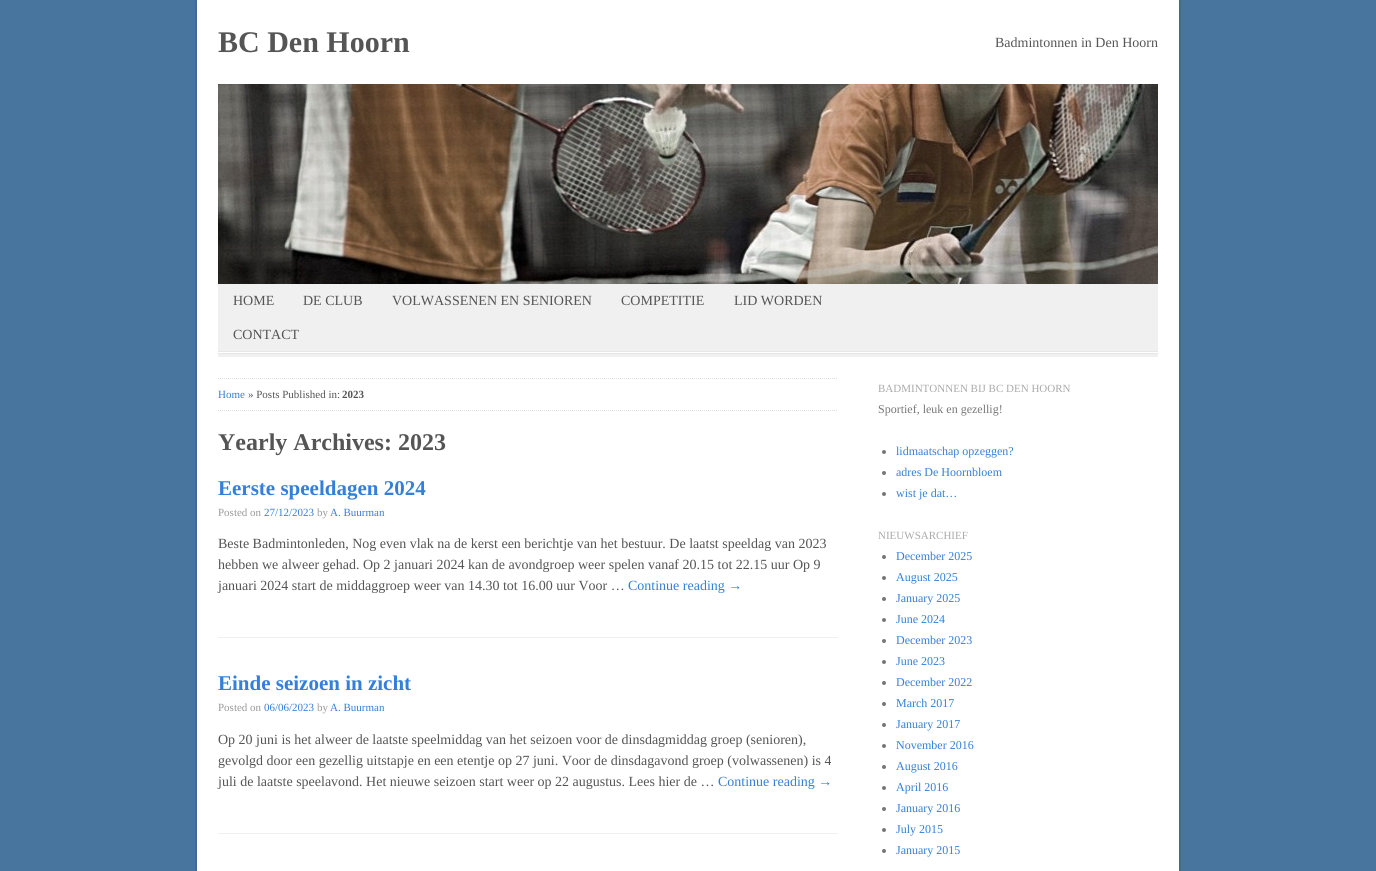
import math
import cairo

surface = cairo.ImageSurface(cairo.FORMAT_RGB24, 1376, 871)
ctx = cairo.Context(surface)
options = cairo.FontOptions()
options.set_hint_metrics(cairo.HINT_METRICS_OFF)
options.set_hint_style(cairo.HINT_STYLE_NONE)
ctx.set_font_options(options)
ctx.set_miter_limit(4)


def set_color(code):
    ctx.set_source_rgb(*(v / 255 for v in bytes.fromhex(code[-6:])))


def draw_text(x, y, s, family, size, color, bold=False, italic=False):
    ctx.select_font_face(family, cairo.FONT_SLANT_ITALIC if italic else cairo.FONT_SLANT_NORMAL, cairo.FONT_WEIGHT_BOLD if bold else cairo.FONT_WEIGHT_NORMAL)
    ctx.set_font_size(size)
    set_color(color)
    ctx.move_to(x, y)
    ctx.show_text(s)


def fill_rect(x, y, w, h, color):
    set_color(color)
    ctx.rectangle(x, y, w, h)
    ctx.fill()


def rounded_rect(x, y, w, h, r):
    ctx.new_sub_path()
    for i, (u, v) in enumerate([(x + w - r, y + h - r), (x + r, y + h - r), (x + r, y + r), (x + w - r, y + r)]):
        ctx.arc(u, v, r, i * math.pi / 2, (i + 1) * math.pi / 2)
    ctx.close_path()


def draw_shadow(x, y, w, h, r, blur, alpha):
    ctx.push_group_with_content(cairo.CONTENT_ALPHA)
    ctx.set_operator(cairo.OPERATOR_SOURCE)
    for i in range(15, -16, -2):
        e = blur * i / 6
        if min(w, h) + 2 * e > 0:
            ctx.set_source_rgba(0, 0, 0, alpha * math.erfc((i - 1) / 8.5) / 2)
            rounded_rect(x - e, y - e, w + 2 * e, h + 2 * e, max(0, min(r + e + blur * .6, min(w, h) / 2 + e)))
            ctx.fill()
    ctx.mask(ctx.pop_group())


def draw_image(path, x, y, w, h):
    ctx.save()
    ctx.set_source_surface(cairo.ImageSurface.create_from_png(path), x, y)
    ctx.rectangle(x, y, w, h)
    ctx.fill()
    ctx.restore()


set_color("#47759e")
ctx.paint()
set_color("#000000")
draw_shadow(197, 0, 982, 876, 0, 1.5, 0.3)
fill_rect(197, 0, 982, 871, "#ffffff")
draw_text(218, 52, "BC Den Hoorn", "Liberation Serif", 30, "#555555", bold=True)
draw_text(995, 47, "Badmintonnen in Den Hoorn", "Liberation Serif", 14, "#555555")
draw_image("assets/img1.png", 218, 84, 940, 200)
fill_rect(218, 284, 940, 67, "#f0f0f0")
fill_rect(218, 351, 940, 1, "#e6e6e6")
draw_text(233, 305, "HOME", "Liberation Serif", 14, "#555555")
draw_text(303, 305, "DE CLUB", "Liberation Serif", 14, "#555555")
draw_text(392, 305, "VOLWASSENEN EN SENIOREN", "Liberation Serif", 14, "#555555")
draw_text(621, 305, "COMPETITIE", "Liberation Serif", 14, "#555555")
draw_text(734, 305, "LID WORDEN", "Liberation Serif", 14, "#555555")
draw_text(233, 339, "CONTACT", "Liberation Serif", 14, "#555555")
fill_rect(218, 353, 940, 1, "#e6e6e6")
fill_rect(218, 354, 940, 3, "#f0f0f0")
ctx.new_path()
ctx.move_to(218, 378.5)
ctx.line_to(838, 378.5)
set_color("#dddddd")
ctx.set_line_width(1)
ctx.set_dash([1, 1])
ctx.stroke()
ctx.new_path()
ctx.move_to(218, 410.5)
ctx.line_to(838, 410.5)
ctx.stroke()
draw_text(218, 398, "Home", "Liberation Serif", 11, "#337fda")
draw_text(248, 398, "» Posts Published in:", "Liberation Serif", 11, "#555555")
draw_text(342, 398, "2023", "Liberation Serif", 11, "#555555", bold=True)
draw_text(218, 450, "Yearly Archives: 2023", "Liberation Serif", 24, "#555555", bold=True)
fill_rect(218, 637, 620, 1, "#f0f0f0")
draw_text(218, 495, "Eerste speeldagen 2024", "Liberation Serif", 21, "#337fda", bold=True)
draw_text(218, 516, "Posted on", "Liberation Serif", 11, "#999999")
draw_text(264, 516, "27/12/2023", "Liberation Serif", 11, "#337fda")
draw_text(317, 516, "by", "Liberation Serif", 11, "#999999")
draw_text(330, 516, "A. Buurman", "Liberation Serif", 11, "#337fda")
draw_text(218, 548, "Beste Badmintonleden, Nog even vlak na de kerst een berichtje van het bestuur. De laatst speeldag van 2023", "Liberation Serif", 14, "#555555")
draw_text(218, 569, "hebben we alweer gehad. Op 2 januari 2024 kan de avondgroep weer spelen vanaf 20.15 tot 22.15 uur Op 9", "Liberation Serif", 14, "#555555")
draw_text(218, 590, "januari 2024 start de middaggroep weer van 14.30 tot 16.00 uur Voor …", "Liberation Serif", 14, "#555555")
draw_text(628, 590, "Continue reading →", "Liberation Serif", 14, "#337fda")
fill_rect(218, 833, 620, 1, "#f0f0f0")
draw_text(218, 690, "Einde seizoen in zicht", "Liberation Serif", 21, "#337fda", bold=True)
draw_text(218, 711, "Posted on", "Liberation Serif", 11, "#999999")
draw_text(264, 711, "06/06/2023", "Liberation Serif", 11, "#337fda")
draw_text(317, 711, "by", "Liberation Serif", 11, "#999999")
draw_text(330, 711, "A. Buurman", "Liberation Serif", 11, "#337fda")
draw_text(218, 744, "Op 20 juni is het alweer de laatste speelmiddag van het seizoen voor de dinsdagmiddag groep (senioren),", "Liberation Serif", 14, "#555555")
draw_text(218, 765, "gevolgd door een gezellig uitstapje en een etentje op 27 juni. Voor de dinsdagavond groep (volwassenen) is 4", "Liberation Serif", 14, "#555555")
draw_text(218, 786, "juli de laatste speelavond. Het nieuwe seizoen start weer op 22 augustus. Lees hier de …", "Liberation Serif", 14, "#555555")
draw_text(718, 786, "Continue reading →", "Liberation Serif", 14, "#337fda")
draw_text(878, 392, "BADMINTONNEN BIJ BC DEN HOORN", "Liberation Serif", 11, "#aaaaaa")
draw_text(878, 413, "Sportief, leuk en gezellig!", "Liberation Serif", 12, "#777777")
ctx.new_path()
ctx.arc(884, 452, 2, 0, 2 * math.pi)
ctx.fill()
draw_text(896, 455, "lidmaatschap opzeggen?", "Liberation Serif", 12, "#337fda")
set_color("#777777")
ctx.new_path()
ctx.arc(884, 473, 2, 0, 2 * math.pi)
ctx.fill()
draw_text(896, 476, "adres De Hoornbloem", "Liberation Serif", 12, "#337fda")
set_color("#777777")
ctx.new_path()
ctx.arc(884, 494, 2, 0, 2 * math.pi)
ctx.fill()
draw_text(896, 497, "wist je dat…", "Liberation Serif", 12, "#337fda")
draw_text(878, 539, "NIEUWSARCHIEF", "Liberation Serif", 11, "#aaaaaa")
set_color("#777777")
ctx.new_path()
ctx.arc(884, 557, 2, 0, 2 * math.pi)
ctx.fill()
draw_text(896, 560, "December 2025", "Liberation Serif", 12, "#337fda")
set_color("#777777")
ctx.new_path()
ctx.arc(884, 578, 2, 0, 2 * math.pi)
ctx.fill()
draw_text(896, 581, "August 2025", "Liberation Serif", 12, "#337fda")
set_color("#777777")
ctx.new_path()
ctx.arc(884, 599, 2, 0, 2 * math.pi)
ctx.fill()
draw_text(896, 602, "January 2025", "Liberation Serif", 12, "#337fda")
set_color("#777777")
ctx.new_path()
ctx.arc(884, 620, 2, 0, 2 * math.pi)
ctx.fill()
draw_text(896, 623, "June 2024", "Liberation Serif", 12, "#337fda")
set_color("#777777")
ctx.new_path()
ctx.arc(884, 641, 2, 0, 2 * math.pi)
ctx.fill()
draw_text(896, 644, "December 2023", "Liberation Serif", 12, "#337fda")
set_color("#777777")
ctx.new_path()
ctx.arc(884, 662, 2, 0, 2 * math.pi)
ctx.fill()
draw_text(896, 665, "June 2023", "Liberation Serif", 12, "#337fda")
set_color("#777777")
ctx.new_path()
ctx.arc(884, 683, 2, 0, 2 * math.pi)
ctx.fill()
draw_text(896, 686, "December 2022", "Liberation Serif", 12, "#337fda")
set_color("#777777")
ctx.new_path()
ctx.arc(884, 704, 2, 0, 2 * math.pi)
ctx.fill()
draw_text(896, 707, "March 2017", "Liberation Serif", 12, "#337fda")
set_color("#777777")
ctx.new_path()
ctx.arc(884, 725, 2, 0, 2 * math.pi)
ctx.fill()
draw_text(896, 728, "January 2017", "Liberation Serif", 12, "#337fda")
set_color("#777777")
ctx.new_path()
ctx.arc(884, 746, 2, 0, 2 * math.pi)
ctx.fill()
draw_text(896, 749, "November 2016", "Liberation Serif", 12, "#337fda")
set_color("#777777")
ctx.new_path()
ctx.arc(884, 767, 2, 0, 2 * math.pi)
ctx.fill()
draw_text(896, 770, "August 2016", "Liberation Serif", 12, "#337fda")
set_color("#777777")
ctx.new_path()
ctx.arc(884, 788, 2, 0, 2 * math.pi)
ctx.fill()
draw_text(896, 791, "April 2016", "Liberation Serif", 12, "#337fda")
set_color("#777777")
ctx.new_path()
ctx.arc(884, 809, 2, 0, 2 * math.pi)
ctx.fill()
draw_text(896, 812, "January 2016", "Liberation Serif", 12, "#337fda")
set_color("#777777")
ctx.new_path()
ctx.arc(884, 830, 2, 0, 2 * math.pi)
ctx.fill()
draw_text(896, 833, "July 2015", "Liberation Serif", 12, "#337fda")
set_color("#777777")
ctx.new_path()
ctx.arc(884, 851, 2, 0, 2 * math.pi)
ctx.fill()
draw_text(896, 854, "January 2015", "Liberation Serif", 12, "#337fda")
surface.write_to_png("output.png")
